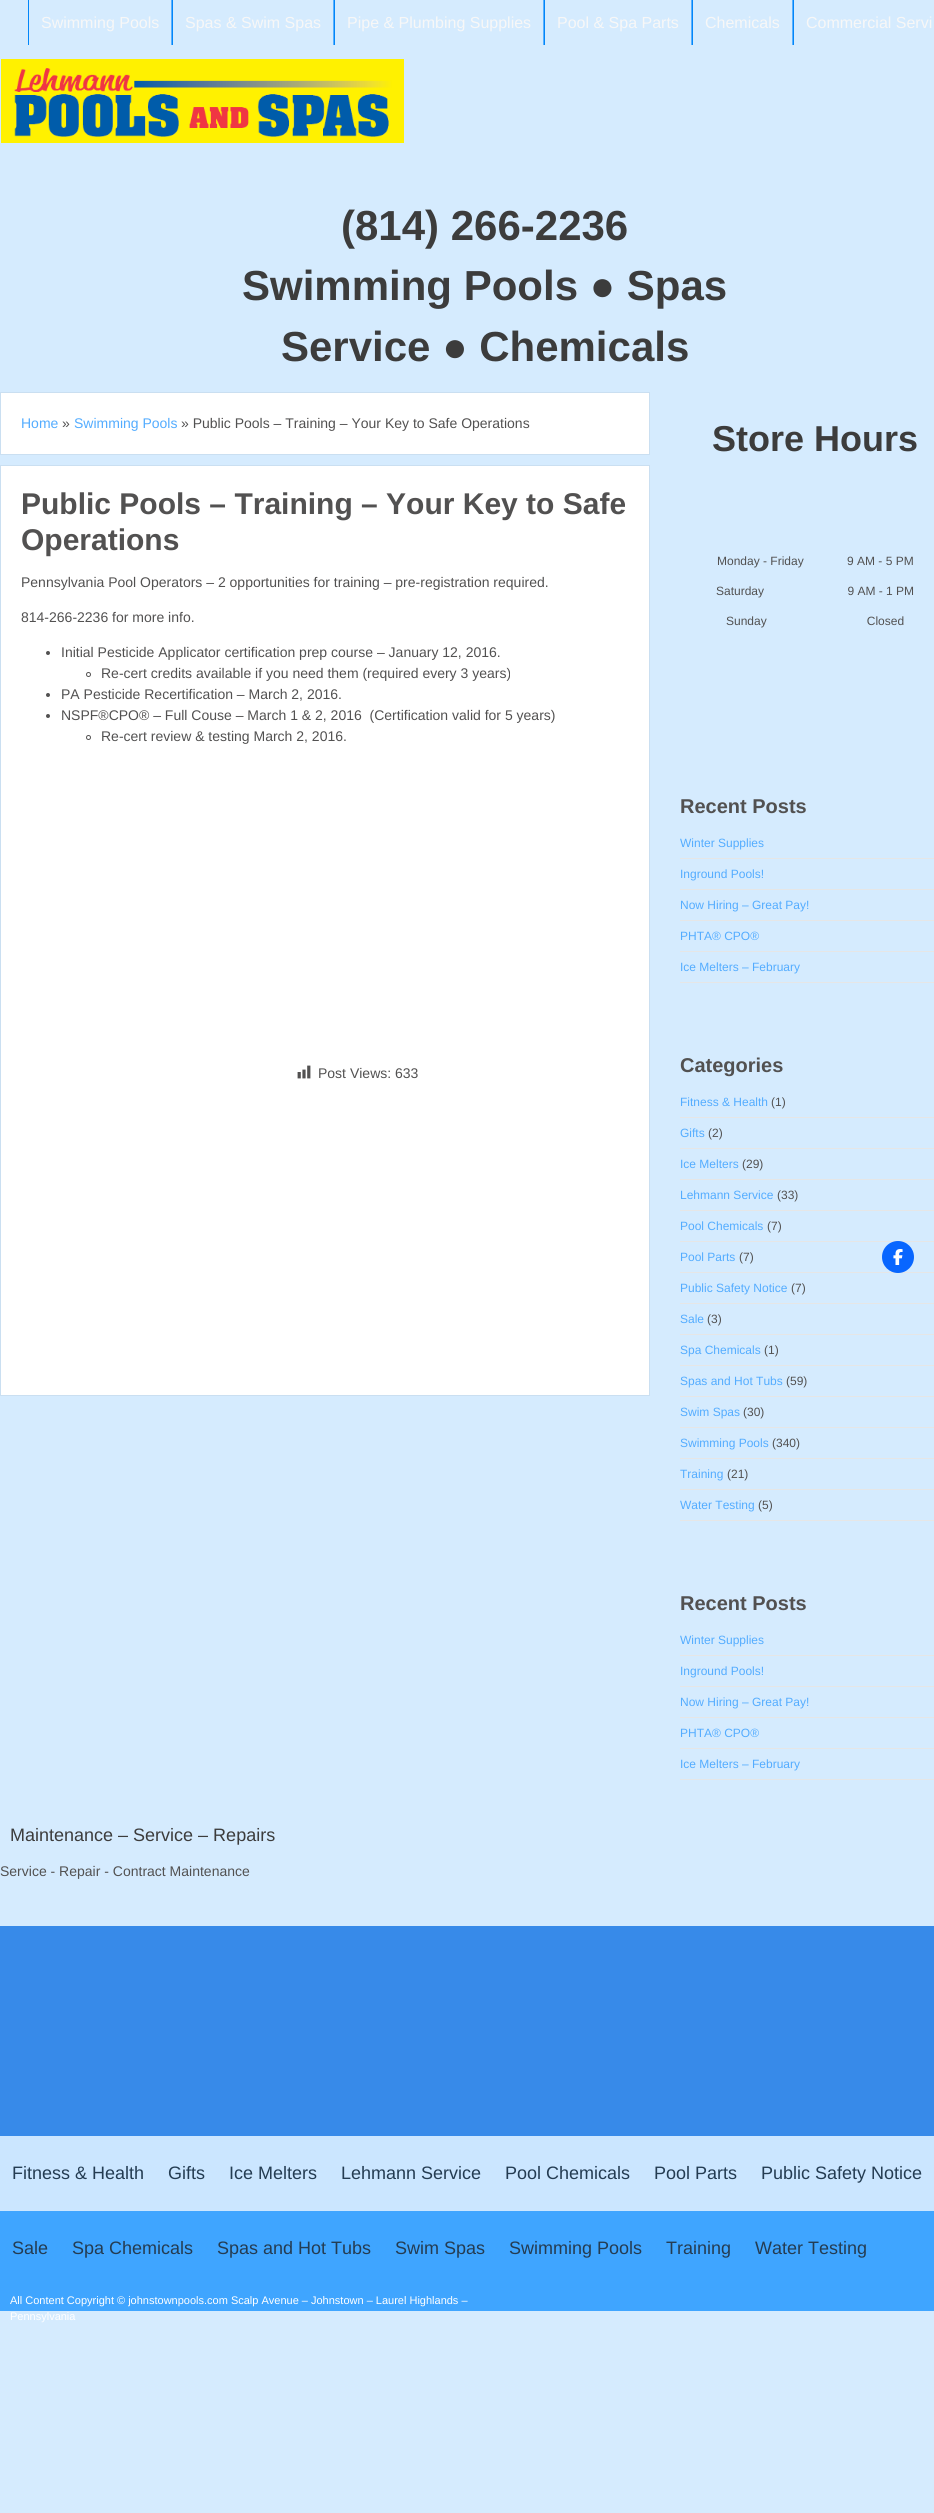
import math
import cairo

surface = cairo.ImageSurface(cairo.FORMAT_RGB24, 934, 2513)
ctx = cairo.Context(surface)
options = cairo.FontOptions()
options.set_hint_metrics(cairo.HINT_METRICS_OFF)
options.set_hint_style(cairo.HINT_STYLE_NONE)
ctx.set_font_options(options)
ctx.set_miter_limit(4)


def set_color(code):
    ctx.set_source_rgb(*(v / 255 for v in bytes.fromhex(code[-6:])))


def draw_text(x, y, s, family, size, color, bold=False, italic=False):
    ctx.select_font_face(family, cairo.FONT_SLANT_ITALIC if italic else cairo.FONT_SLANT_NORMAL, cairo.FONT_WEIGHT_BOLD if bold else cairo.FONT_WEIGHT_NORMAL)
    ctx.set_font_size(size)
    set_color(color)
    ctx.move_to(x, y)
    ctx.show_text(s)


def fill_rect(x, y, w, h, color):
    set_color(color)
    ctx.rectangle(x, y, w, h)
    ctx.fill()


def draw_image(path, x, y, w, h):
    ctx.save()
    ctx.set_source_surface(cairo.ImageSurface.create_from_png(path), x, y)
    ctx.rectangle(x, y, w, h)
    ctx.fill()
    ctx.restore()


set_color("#d5ebfe")
ctx.paint()
fill_rect(171, 0, 1, 45, "#58b0ff")
fill_rect(28, 0, 1, 45, "#0286f9")
draw_text(41, 28, "Swimming Pools", "Liberation Sans", 16, "#f7f7f7")
fill_rect(333, 0, 1, 45, "#58b0ff")
fill_rect(172, 0, 1, 45, "#0286f9")
draw_text(185, 28, "Spas & Swim Spas", "Liberation Sans", 16, "#f7f7f7")
fill_rect(543, 0, 1, 45, "#58b0ff")
fill_rect(334, 0, 1, 45, "#0286f9")
draw_text(347, 28, "Pipe & Plumbing Supplies", "Liberation Sans", 16, "#f7f7f7")
fill_rect(691, 0, 1, 45, "#58b0ff")
fill_rect(544, 0, 1, 45, "#0286f9")
draw_text(557, 28, "Pool & Spa Parts", "Liberation Sans", 16, "#f7f7f7")
fill_rect(792, 0, 1, 45, "#58b0ff")
fill_rect(692, 0, 1, 45, "#0286f9")
draw_text(705, 28, "Chemicals", "Liberation Sans", 16, "#f7f7f7")
fill_rect(793, 0, 1, 45, "#0286f9")
draw_text(806, 28, "Commercial Servi", "Liberation Sans", 16, "#f7f7f7")
draw_image("assets/img1.png", 1, 59, 403, 84)
draw_text(341, 240, "(814) 266-2236", "Liberation Sans", 42, "#3c3c3c", bold=True)
draw_text(242, 300, "Swimming Pools ● Spas", "Liberation Sans", 42, "#3c3c3c", bold=True)
draw_text(281, 361, "Service ● Chemicals", "Liberation Sans", 42, "#3c3c3c", bold=True)
set_color("#ffffff")
ctx.rectangle(0.5, 392.5, 649, 62)
ctx.fill_preserve()
set_color("#cadff1")
ctx.set_line_width(1)
ctx.stroke()
draw_text(21, 428, "Home", "Liberation Sans", 14, "#53acff")
draw_text(62, 428, "»", "Liberation Sans", 14, "#525151")
draw_text(74, 428, "Swimming Pools", "Liberation Sans", 14, "#53acff")
draw_text(181, 428, "» Public Pools – Training – Your Key to Safe Operations", "Liberation Sans", 14, "#525151")
set_color("#ffffff")
ctx.rectangle(0.5, 465.5, 649, 930)
ctx.fill_preserve()
set_color("#cadff1")
ctx.stroke()
draw_text(21, 514, "Public Pools – Training – Your Key to Safe", "Liberation Sans", 30, "#525151", bold=True)
draw_text(21, 550, "Operations", "Liberation Sans", 30, "#525151", bold=True)
draw_text(21, 587, "Pennsylvania Pool Operators – 2 opportunities for training – pre-registration required.", "Liberation Sans", 14, "#525151")
draw_text(21, 622, "814-266-2236 for more info.", "Liberation Sans", 14, "#525151")
ctx.new_path()
ctx.arc(48, 653, 2, 0, 2 * math.pi)
ctx.fill()
draw_text(61, 657, "Initial Pesticide Applicator certification prep course – January 12, 2016.", "Liberation Sans", 14, "#525151")
ctx.new_path()
ctx.arc(88.5, 674.5, 2, 0, 2 * math.pi)
ctx.stroke()
draw_text(101, 678, "Re-cert credits available if you need them (required every 3 years)", "Liberation Sans", 14, "#525151")
ctx.new_path()
ctx.arc(48, 695, 2, 0, 2 * math.pi)
ctx.fill()
draw_text(61, 699, "PA Pesticide Recertification – March 2, 2016.", "Liberation Sans", 14, "#525151")
ctx.new_path()
ctx.arc(48, 716, 2, 0, 2 * math.pi)
ctx.fill()
draw_text(61, 720, "NSPF®CPO® – Full Couse – March 1 & 2, 2016  (Certification valid for 5 years)", "Liberation Sans", 14, "#525151")
ctx.new_path()
ctx.arc(88.5, 737.5, 2, 0, 2 * math.pi)
ctx.stroke()
draw_text(101, 741, "Re-cert review & testing March 2, 2016.", "Liberation Sans", 14, "#525151")
draw_image("assets/img2.png", 297, 1065, 14, 14)
draw_text(318, 1078, "Post Views: 633", "Liberation Sans", 14, "#525151")
draw_text(712, 451, "Store Hours", "Liberation Sans", 36, "#3c3c3c", bold=True)
draw_text(717, 565, "Monday - Friday", "Liberation Sans", 12, "#525151")
draw_text(847, 565, "9 AM - 5 PM", "Liberation Sans", 12, "#525151")
draw_text(716, 595, "Saturday                         9 AM - 1 PM", "Liberation Sans", 12, "#525151")
draw_text(726, 625, "Sunday                              Closed", "Liberation Sans", 12, "#525151")
draw_text(680, 813, "Recent Posts", "Liberation Sans", 20, "#525151", bold=True)
fill_rect(680, 858, 254, 1, "#e6e6e6")
draw_text(680, 847, "Winter Supplies", "Liberation Sans", 12, "#53acff")
fill_rect(680, 889, 254, 1, "#e6e6e6")
draw_text(680, 878, "Inground Pools!", "Liberation Sans", 12, "#53acff")
fill_rect(680, 920, 254, 1, "#e6e6e6")
draw_text(680, 909, "Now Hiring – Great Pay!", "Liberation Sans", 12, "#53acff")
fill_rect(680, 951, 254, 1, "#e6e6e6")
draw_text(680, 940, "PHTA® CPO®", "Liberation Sans", 12, "#53acff")
fill_rect(680, 982, 254, 1, "#e6e6e6")
draw_text(680, 971, "Ice Melters – February", "Liberation Sans", 12, "#53acff")
draw_text(680, 1072, "Categories", "Liberation Sans", 20, "#525151", bold=True)
fill_rect(680, 1117, 254, 1, "#e6e6e6")
draw_text(680, 1106, "Fitness & Health", "Liberation Sans", 12, "#53acff")
draw_text(771, 1106, "(1)", "Liberation Sans", 12, "#525151")
fill_rect(680, 1148, 254, 1, "#e6e6e6")
draw_text(680, 1137, "Gifts", "Liberation Sans", 12, "#53acff")
draw_text(708, 1137, "(2)", "Liberation Sans", 12, "#525151")
fill_rect(680, 1179, 254, 1, "#e6e6e6")
draw_text(680, 1168, "Ice Melters", "Liberation Sans", 12, "#53acff")
draw_text(742, 1168, "(29)", "Liberation Sans", 12, "#525151")
fill_rect(680, 1210, 254, 1, "#e6e6e6")
draw_text(680, 1199, "Lehmann Service", "Liberation Sans", 12, "#53acff")
draw_text(777, 1199, "(33)", "Liberation Sans", 12, "#525151")
fill_rect(680, 1241, 254, 1, "#e6e6e6")
draw_text(680, 1230, "Pool Chemicals", "Liberation Sans", 12, "#53acff")
draw_text(767, 1230, "(7)", "Liberation Sans", 12, "#525151")
fill_rect(680, 1272, 254, 1, "#e6e6e6")
draw_text(680, 1261, "Pool Parts", "Liberation Sans", 12, "#53acff")
draw_text(739, 1261, "(7)", "Liberation Sans", 12, "#525151")
fill_rect(680, 1303, 254, 1, "#e6e6e6")
draw_text(680, 1292, "Public Safety Notice", "Liberation Sans", 12, "#53acff")
draw_text(791, 1292, "(7)", "Liberation Sans", 12, "#525151")
fill_rect(680, 1334, 254, 1, "#e6e6e6")
draw_text(680, 1323, "Sale", "Liberation Sans", 12, "#53acff")
draw_text(707, 1323, "(3)", "Liberation Sans", 12, "#525151")
fill_rect(680, 1365, 254, 1, "#e6e6e6")
draw_text(680, 1354, "Spa Chemicals", "Liberation Sans", 12, "#53acff")
draw_text(764, 1354, "(1)", "Liberation Sans", 12, "#525151")
fill_rect(680, 1396, 254, 1, "#e6e6e6")
draw_text(680, 1385, "Spas and Hot Tubs", "Liberation Sans", 12, "#53acff")
draw_text(786, 1385, "(59)", "Liberation Sans", 12, "#525151")
fill_rect(680, 1427, 254, 1, "#e6e6e6")
draw_text(680, 1416, "Swim Spas", "Liberation Sans", 12, "#53acff")
draw_text(743, 1416, "(30)", "Liberation Sans", 12, "#525151")
fill_rect(680, 1458, 254, 1, "#e6e6e6")
draw_text(680, 1447, "Swimming Pools", "Liberation Sans", 12, "#53acff")
draw_text(772, 1447, "(340)", "Liberation Sans", 12, "#525151")
fill_rect(680, 1489, 254, 1, "#e6e6e6")
draw_text(680, 1478, "Training", "Liberation Sans", 12, "#53acff")
draw_text(727, 1478, "(21)", "Liberation Sans", 12, "#525151")
fill_rect(680, 1520, 254, 1, "#e6e6e6")
draw_text(680, 1509, "Water Testing", "Liberation Sans", 12, "#53acff")
draw_text(758, 1509, "(5)", "Liberation Sans", 12, "#525151")
draw_text(680, 1610, "Recent Posts", "Liberation Sans", 20, "#525151", bold=True)
fill_rect(680, 1655, 254, 1, "#e6e6e6")
draw_text(680, 1644, "Winter Supplies", "Liberation Sans", 12, "#53acff")
fill_rect(680, 1686, 254, 1, "#e6e6e6")
draw_text(680, 1675, "Inground Pools!", "Liberation Sans", 12, "#53acff")
fill_rect(680, 1717, 254, 1, "#e6e6e6")
draw_text(680, 1706, "Now Hiring – Great Pay!", "Liberation Sans", 12, "#53acff")
fill_rect(680, 1748, 254, 1, "#e6e6e6")
draw_text(680, 1737, "PHTA® CPO®", "Liberation Sans", 12, "#53acff")
fill_rect(680, 1779, 254, 1, "#e6e6e6")
draw_text(680, 1768, "Ice Melters – February", "Liberation Sans", 12, "#53acff")
draw_text(10, 1841, "Maintenance – Service – Repairs", "Liberation Sans", 18, "#3c3c3c")
draw_text(0, 1876, "Service - Repair - Contract Maintenance", "Liberation Sans", 14, "#525151")
fill_rect(0, 1926, 934, 210, "#378ae9")
fill_rect(0, 2136, 934, 75, "#cbe6ff")
draw_text(12, 2179, "Fitness & Health", "Liberation Sans", 18, "#243c52")
draw_text(168, 2179, "Gifts", "Liberation Sans", 18, "#243c52")
draw_text(229, 2179, "Ice Melters", "Liberation Sans", 18, "#243c52")
draw_text(341, 2179, "Lehmann Service", "Liberation Sans", 18, "#243c52")
draw_text(505, 2179, "Pool Chemicals", "Liberation Sans", 18, "#243c52")
draw_text(654, 2179, "Pool Parts", "Liberation Sans", 18, "#243c52")
draw_text(761, 2179, "Public Safety Notice", "Liberation Sans", 18, "#243c52")
fill_rect(0, 2211, 934, 100, "#3fa5ff")
draw_text(12, 2254, "Sale", "Liberation Sans", 18, "#243c52")
draw_text(72, 2254, "Spa Chemicals", "Liberation Sans", 18, "#243c52")
draw_text(217, 2254, "Spas and Hot Tubs", "Liberation Sans", 18, "#243c52")
draw_text(395, 2254, "Swim Spas", "Liberation Sans", 18, "#243c52")
draw_text(509, 2254, "Swimming Pools", "Liberation Sans", 18, "#243c52")
draw_text(666, 2254, "Training", "Liberation Sans", 18, "#243c52")
draw_text(755, 2254, "Water Testing", "Liberation Sans", 18, "#243c52")
draw_text(10, 2304, "All Content Copyright © johnstownpools.com Scalp Avenue – Johnstown – Laurel Highlands –", "Liberation Sans", 11, "#ffffff")
draw_text(10, 2320, "Pennsylvania", "Liberation Sans", 11, "#ffffff")
set_color("#0866ff")
ctx.new_path()
ctx.arc(898, 1257, 16, 0, 2 * math.pi)
ctx.fill()
draw_image("assets/img3.png", 893, 1249, 10, 16)
surface.write_to_png("output.png")
